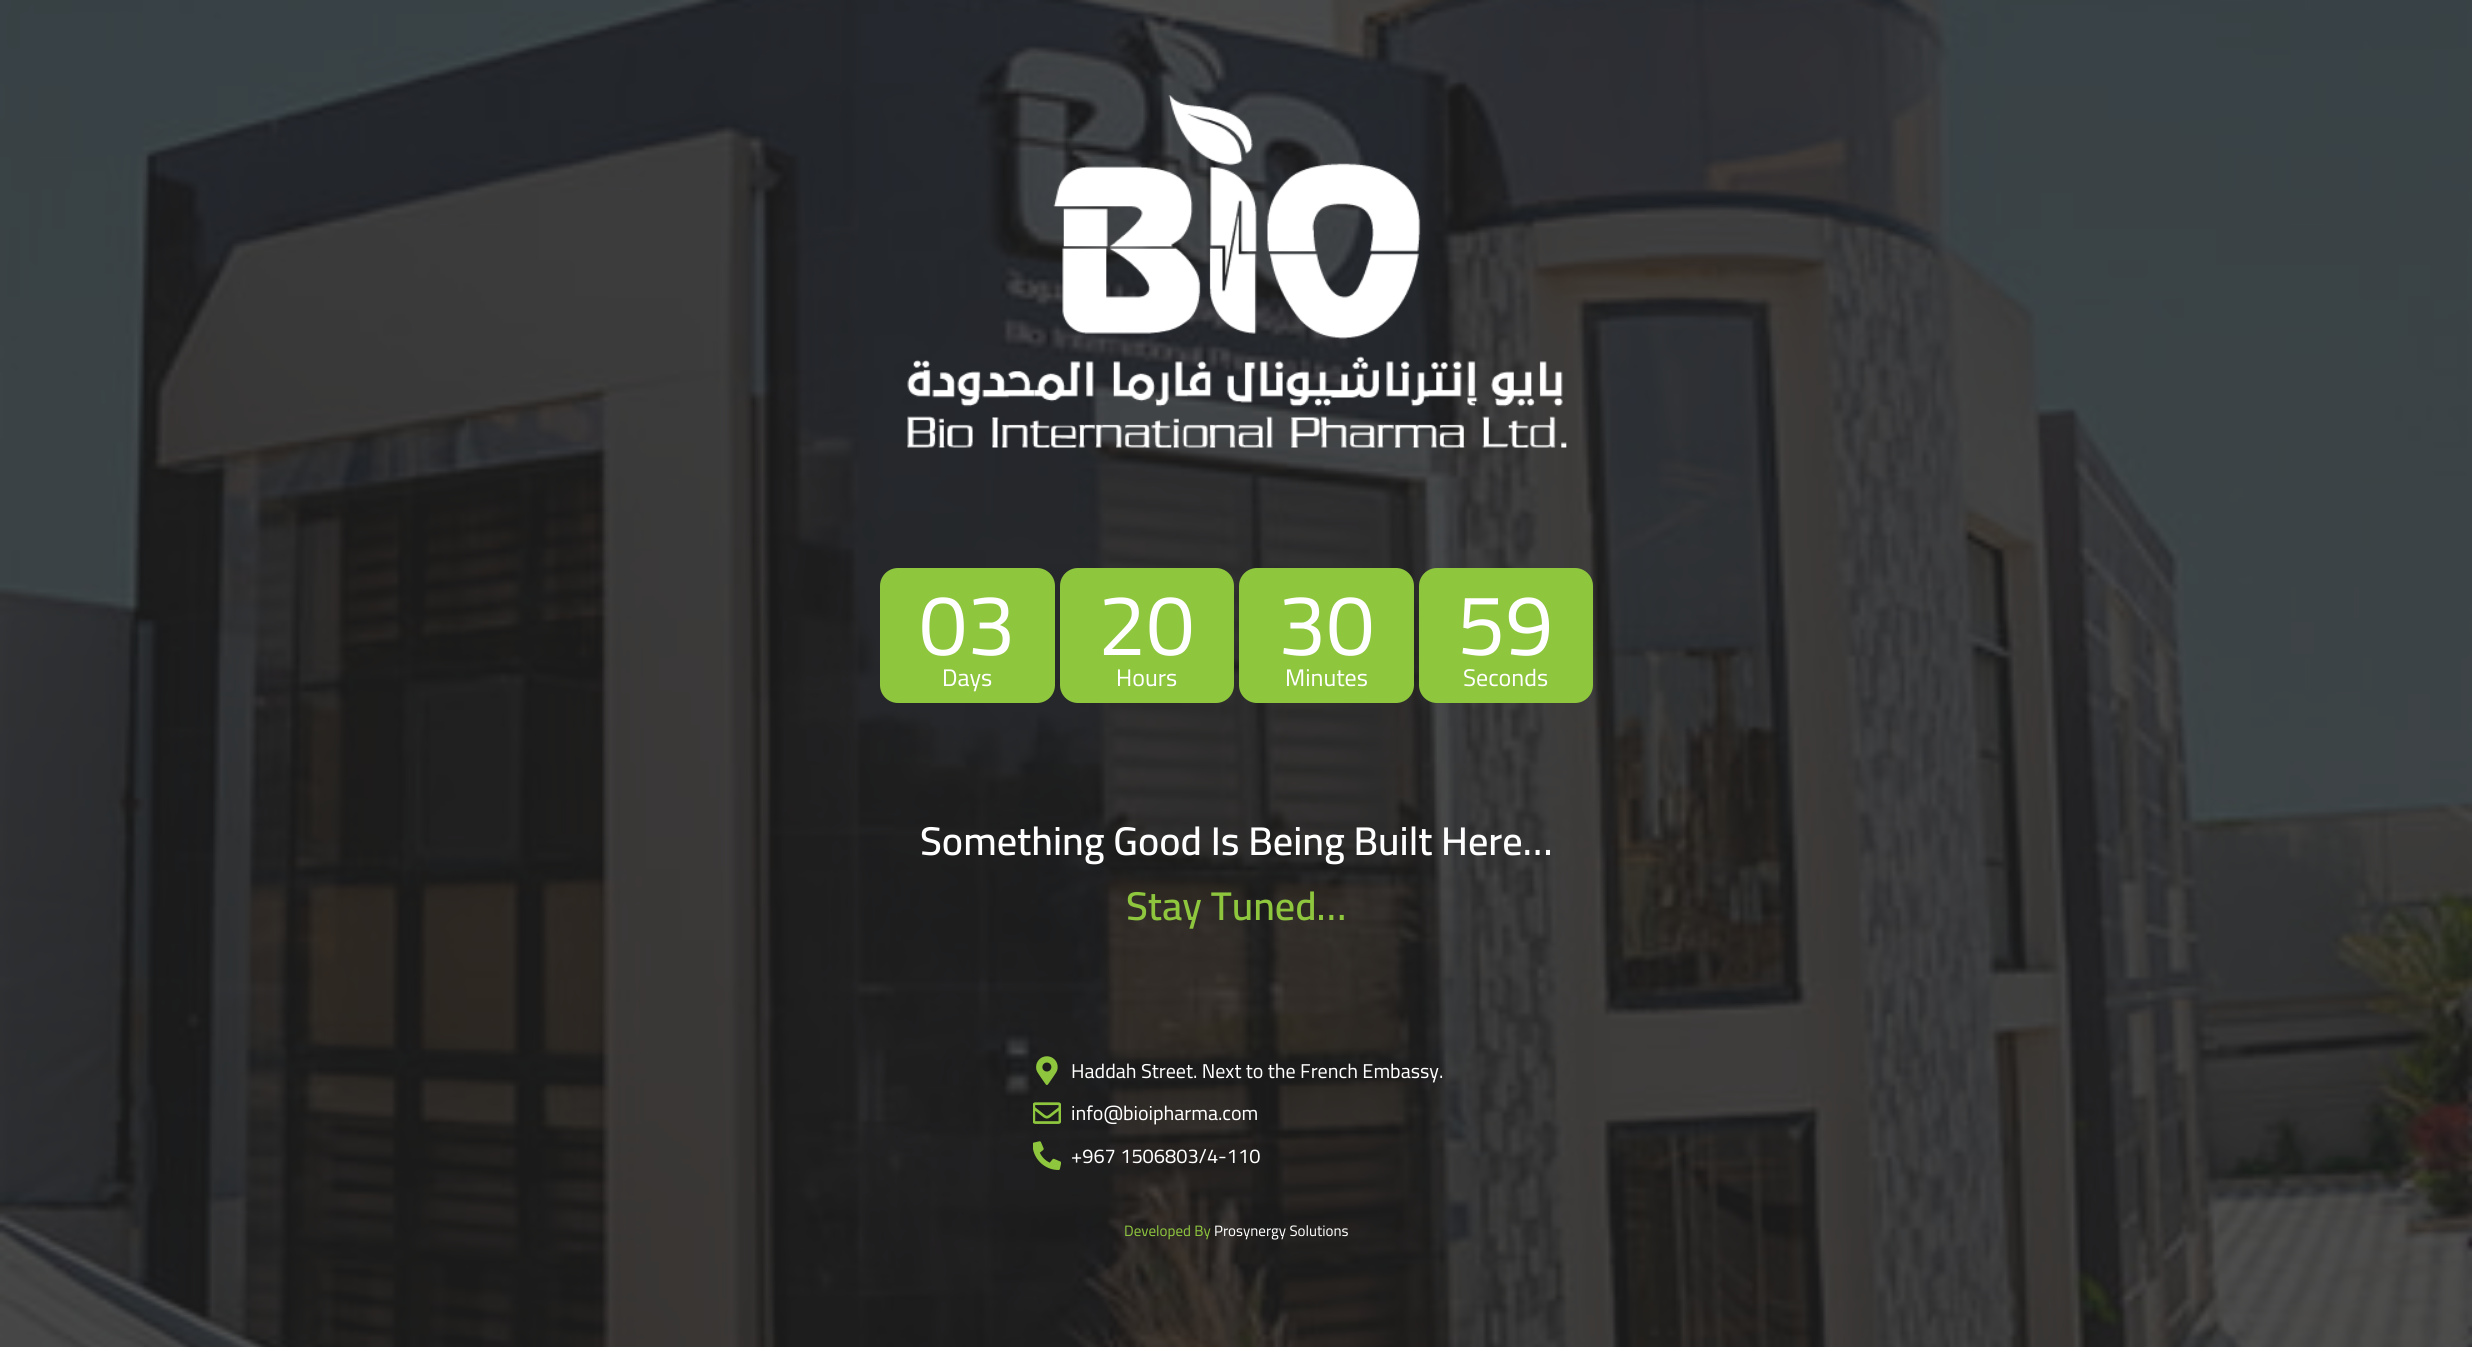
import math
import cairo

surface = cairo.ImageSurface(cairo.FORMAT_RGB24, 2472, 1347)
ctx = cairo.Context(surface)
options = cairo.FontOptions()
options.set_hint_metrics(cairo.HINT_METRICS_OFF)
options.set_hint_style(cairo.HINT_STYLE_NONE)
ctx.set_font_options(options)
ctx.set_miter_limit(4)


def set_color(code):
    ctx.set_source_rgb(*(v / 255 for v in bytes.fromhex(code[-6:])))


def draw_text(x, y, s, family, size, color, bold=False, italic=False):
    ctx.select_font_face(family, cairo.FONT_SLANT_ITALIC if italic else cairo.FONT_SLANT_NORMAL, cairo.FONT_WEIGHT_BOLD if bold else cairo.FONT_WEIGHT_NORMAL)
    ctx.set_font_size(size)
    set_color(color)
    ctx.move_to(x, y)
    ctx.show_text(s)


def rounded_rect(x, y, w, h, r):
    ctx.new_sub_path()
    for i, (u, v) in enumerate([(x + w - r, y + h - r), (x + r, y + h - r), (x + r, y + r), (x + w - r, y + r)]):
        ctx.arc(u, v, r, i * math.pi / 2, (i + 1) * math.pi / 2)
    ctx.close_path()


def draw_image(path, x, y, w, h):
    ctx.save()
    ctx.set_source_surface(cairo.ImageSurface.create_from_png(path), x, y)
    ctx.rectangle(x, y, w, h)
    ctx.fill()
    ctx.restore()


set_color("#ffffff")
ctx.paint()
draw_image("assets/img1.png", 0, 0, 2472, 1347)
draw_image("assets/img2.png", 907, 95, 660, 353)
set_color("#8ec63e")
rounded_rect(880, 568, 175, 135, 18)
ctx.fill()
draw_text(919, 655, "03", "Cairo", 86, "#ffffff")
draw_text(942, 686, "Days", "Cairo", 24, "#ffffff")
set_color("#8ec63e")
rounded_rect(1060, 568, 174, 135, 18)
ctx.fill()
draw_text(1098, 655, "20", "Cairo", 86, "#ffffff")
draw_text(1116, 686, "Hours", "Cairo", 24, "#ffffff")
set_color("#8ec63e")
rounded_rect(1239, 568, 175, 135, 18)
ctx.fill()
draw_text(1278, 655, "30", "Cairo", 86, "#ffffff")
draw_text(1285, 686, "Minutes", "Cairo", 24, "#ffffff")
set_color("#8ec63e")
rounded_rect(1419, 568, 174, 135, 18)
ctx.fill()
draw_text(1457, 655, "59", "Cairo", 86, "#ffffff")
draw_text(1463, 686, "Seconds", "Cairo", 24, "#ffffff")
draw_text(920, 855, "Something Good Is Being Built Here…", "Cairo SemiBold", 40, "#ffffff")
draw_text(1126, 920, "Stay Tuned…", "Cairo SemiBold", 40, "#8ec63e")
draw_image("assets/img3.png", 1036, 1056, 22, 29)
draw_text(1071, 1078, "Haddah Street. Next to the French Embassy.", "Cairo", 20, "#ffffff")
draw_image("assets/img4.png", 1033, 1102, 28, 22)
draw_text(1071, 1120, "info@bioipharma.com", "Cairo", 20, "#ffffff")
draw_image("assets/img5.png", 1033, 1141, 28, 29)
draw_text(1071, 1163, "+967 1506803/4-110", "Cairo", 20, "#ffffff")
draw_text(1124, 1236, "Developed By", "Cairo", 15, "#8ec63e")
draw_text(1214, 1236, "Prosynergy Solutions", "Cairo", 15, "#ffffff")
surface.write_to_png("output.png")
